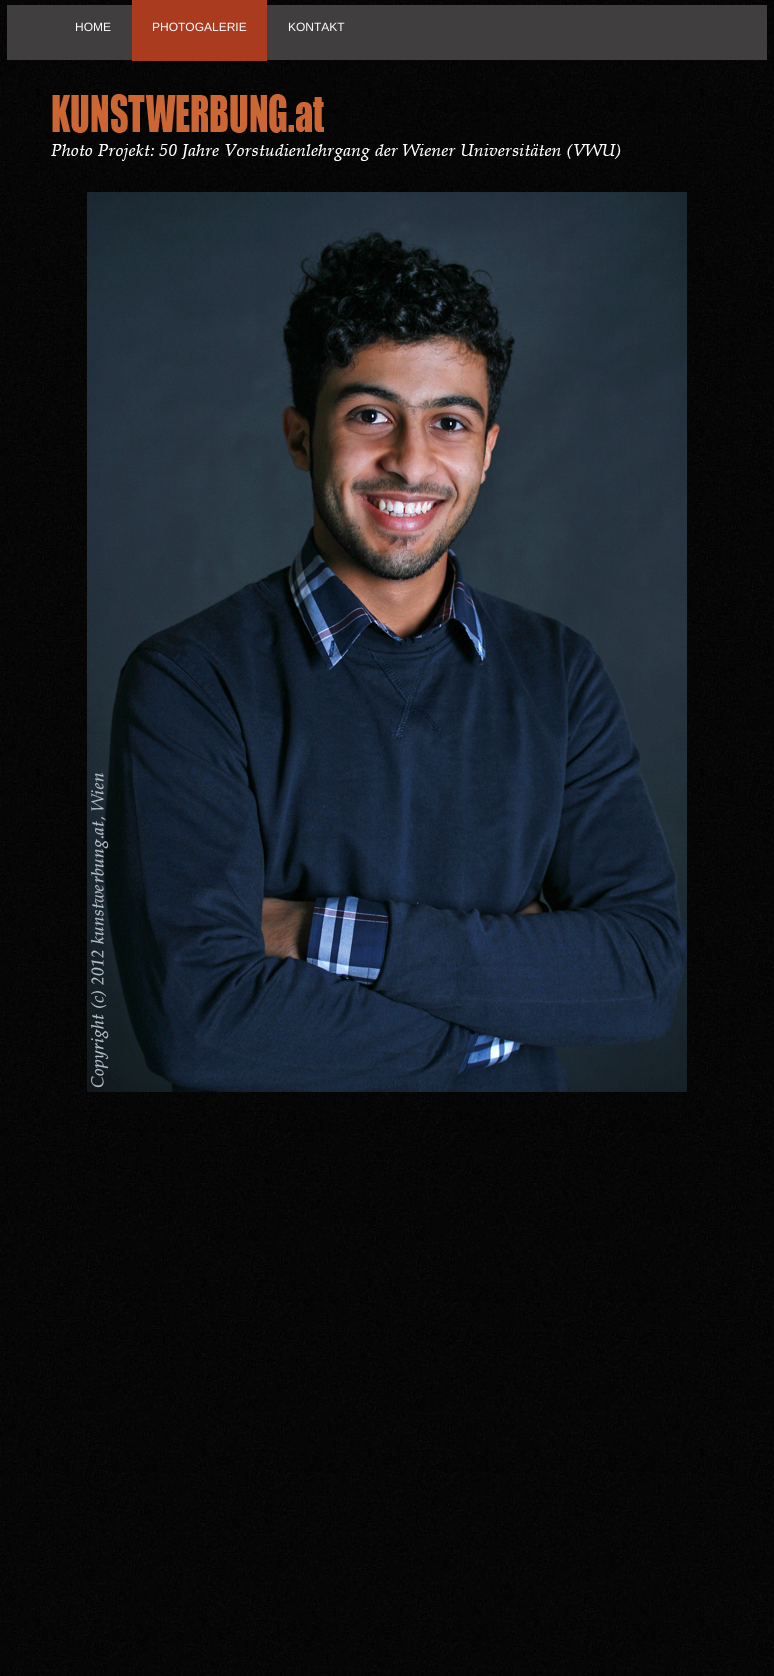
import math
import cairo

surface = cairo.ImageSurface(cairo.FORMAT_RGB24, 774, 1676)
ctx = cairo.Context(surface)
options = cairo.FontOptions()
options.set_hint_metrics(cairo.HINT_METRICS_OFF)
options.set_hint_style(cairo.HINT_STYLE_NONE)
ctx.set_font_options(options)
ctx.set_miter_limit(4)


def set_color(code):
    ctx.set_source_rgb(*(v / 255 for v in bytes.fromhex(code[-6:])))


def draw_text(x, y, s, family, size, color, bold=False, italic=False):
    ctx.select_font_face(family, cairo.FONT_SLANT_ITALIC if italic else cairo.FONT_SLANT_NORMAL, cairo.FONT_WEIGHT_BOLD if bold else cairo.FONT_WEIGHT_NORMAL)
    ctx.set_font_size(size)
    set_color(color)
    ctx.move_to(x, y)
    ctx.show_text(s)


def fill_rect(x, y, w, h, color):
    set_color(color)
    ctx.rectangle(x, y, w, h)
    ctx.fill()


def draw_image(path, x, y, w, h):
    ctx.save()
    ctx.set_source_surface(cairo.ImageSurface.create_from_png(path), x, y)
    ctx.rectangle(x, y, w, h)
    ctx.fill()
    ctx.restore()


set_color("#ffffff")
ctx.paint()
draw_image("assets/img1.png", 0, 0, 774, 1676)
fill_rect(7, 5, 760, 55, "#403e3f")
draw_text(75, 31, "HOME", "Liberation Sans", 12, "#ffffff")
fill_rect(132, 0, 135, 61, "#aa3b1f")
draw_text(152, 31, "PHOTOGALERIE", "Liberation Sans", 12, "#ffffff")
draw_text(288, 31, "KONTAKT", "Liberation Sans", 12, "#ffffff")
draw_image("assets/img2.png", 51, 94, 570, 67)
draw_image("assets/img3.png", 87, 192, 600, 900)
surface.write_to_png("output.png")
